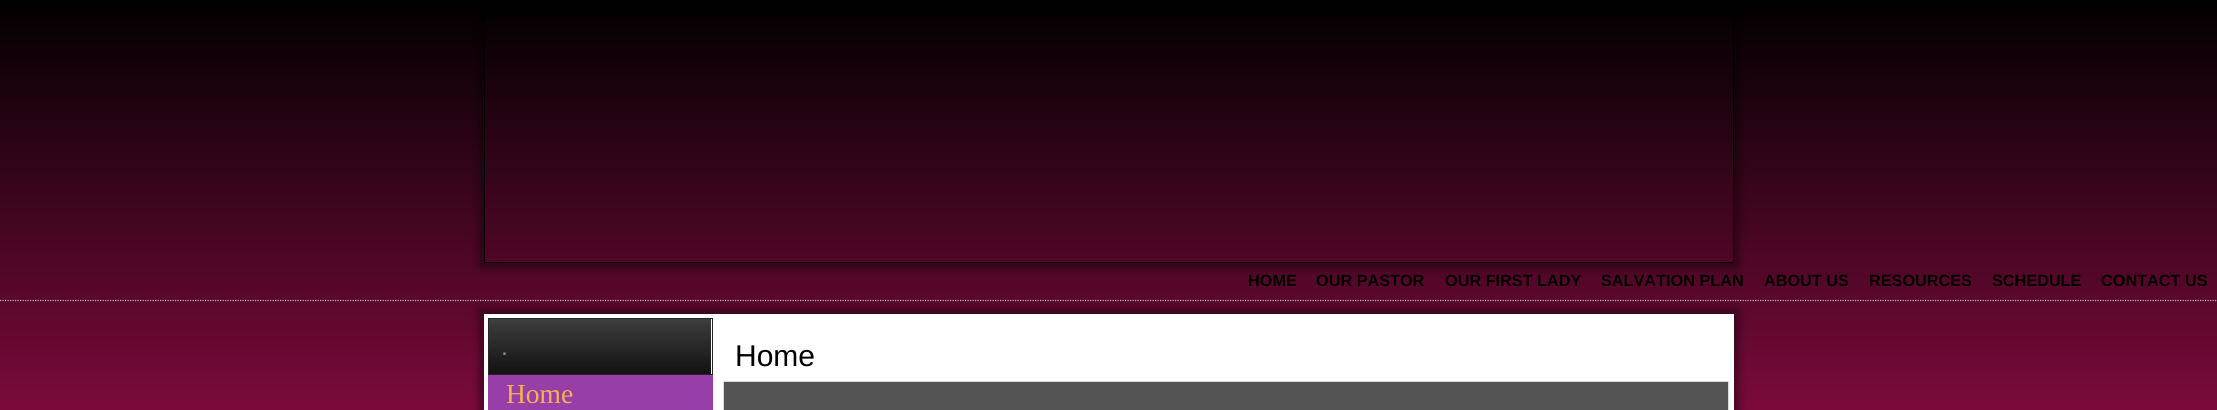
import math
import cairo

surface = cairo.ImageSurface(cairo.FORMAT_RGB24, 2217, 410)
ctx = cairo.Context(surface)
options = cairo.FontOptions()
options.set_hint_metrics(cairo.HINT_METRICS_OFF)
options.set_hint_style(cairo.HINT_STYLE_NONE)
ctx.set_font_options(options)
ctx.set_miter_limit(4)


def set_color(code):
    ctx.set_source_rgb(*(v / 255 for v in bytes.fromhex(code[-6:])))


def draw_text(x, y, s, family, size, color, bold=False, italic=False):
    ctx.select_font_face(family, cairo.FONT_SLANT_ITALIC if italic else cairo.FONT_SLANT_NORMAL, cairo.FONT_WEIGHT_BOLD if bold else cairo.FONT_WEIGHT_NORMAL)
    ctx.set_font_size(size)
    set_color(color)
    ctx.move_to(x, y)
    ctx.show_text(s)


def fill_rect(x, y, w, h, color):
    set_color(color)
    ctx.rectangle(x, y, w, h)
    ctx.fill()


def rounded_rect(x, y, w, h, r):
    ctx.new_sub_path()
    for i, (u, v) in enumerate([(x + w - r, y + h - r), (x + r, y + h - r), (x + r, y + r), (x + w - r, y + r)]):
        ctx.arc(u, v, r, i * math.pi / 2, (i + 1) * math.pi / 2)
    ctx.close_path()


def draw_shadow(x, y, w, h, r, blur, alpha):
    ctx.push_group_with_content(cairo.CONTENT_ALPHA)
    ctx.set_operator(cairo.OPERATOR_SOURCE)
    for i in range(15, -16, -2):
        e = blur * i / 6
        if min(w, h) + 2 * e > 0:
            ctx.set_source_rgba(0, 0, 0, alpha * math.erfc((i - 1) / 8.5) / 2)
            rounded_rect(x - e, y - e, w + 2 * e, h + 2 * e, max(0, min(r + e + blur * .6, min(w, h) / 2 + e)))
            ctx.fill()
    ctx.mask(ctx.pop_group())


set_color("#ffffff")
ctx.paint()
gradient = cairo.LinearGradient(1109, 0, 1109, 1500)
gradient.add_color_stop_rgba(0, 0, 0, 0, 1)
gradient.add_color_stop_rgba(0.52, 0.922, 0.078, 0.443, 1)
gradient.add_color_stop_rgba(1, 0.996, 0.945, 0.965, 1)
ctx.set_source(gradient)
ctx.rectangle(0, 0, 2217, 410)
ctx.fill()
ctx.save()
ctx.set_fill_rule(cairo.FILL_RULE_EVEN_ODD)
ctx.new_path()
ctx.move_to(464, 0)
ctx.line_to(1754, 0)
ctx.line_to(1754, 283)
ctx.line_to(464, 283)
ctx.close_path()
ctx.move_to(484, 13)
ctx.line_to(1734, 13)
ctx.line_to(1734, 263)
ctx.line_to(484, 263)
ctx.close_path()
ctx.clip()
set_color("#000000")
draw_shadow(479, 8, 1260, 260, 0, 4.5, 0.4)
ctx.restore()
ctx.rectangle(484.5, 13.5, 1249, 249)
set_color("#000000")
ctx.set_line_width(1)
ctx.stroke()
set_color("#000000")
draw_shadow(479, 309, 1260, 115, 0, 4.5, 0.4)
ctx.new_path()
ctx.move_to(0, 300.5)
ctx.line_to(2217.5, 300.5)
set_color("#b5b5b5")
ctx.set_line_width(1.2)
ctx.set_dash([1.25, 1.25])
ctx.stroke()
draw_text(1248, 286, "HOME", "Liberation Sans", 16.25, "#000000", bold=True)
draw_text(1316, 286, "OUR PASTOR", "Liberation Sans", 16.25, "#000000", bold=True)
draw_text(1445, 286, "OUR FIRST LADY", "Liberation Sans", 16.25, "#000000", bold=True)
draw_text(1601, 286, "SALVATION PLAN", "Liberation Sans", 16.25, "#000000", bold=True)
draw_text(1764, 286, "ABOUT US", "Liberation Sans", 16.25, "#000000", bold=True)
draw_text(1869, 286, "RESOURCES", "Liberation Sans", 16.25, "#000000", bold=True)
draw_text(1992, 286, "SCHEDULE", "Liberation Sans", 16.25, "#000000", bold=True)
draw_text(2101, 286, "CONTACT US", "Liberation Sans", 16.25, "#000000", bold=True)
fill_rect(484, 314, 1250, 96, "#ffffff")
gradient = cairo.LinearGradient(600, 319, 600, 374)
gradient.add_color_stop_rgba(0, 0.239, 0.239, 0.239, 1)
gradient.add_color_stop_rgba(1, 0.071, 0.071, 0.071, 1)
ctx.set_source(gradient)
ctx.rectangle(489, 319, 222, 55)
ctx.fill()
gradient = cairo.LinearGradient(600, 319, 600, 374)
gradient.add_color_stop_rgba(0, 0.282, 0.282, 0.282, 0.27)
gradient.add_color_stop_rgba(1, 0.027, 0.027, 0.027, 0.18)
ctx.set_source(gradient)
ctx.rectangle(489, 320, 222, 4)
ctx.fill()
ctx.rectangle(488.5, 318.5, 224, 56)
set_color("#262626")
ctx.set_line_width(1)
ctx.set_dash([])
ctx.stroke()
draw_text(501, 355, ".", "Liberation Sans", 25, "#878787")
fill_rect(488, 375, 225, 35, "#983ea8")
draw_text(506, 403, "Home", "Liberation Serif", 27.5, "#f4b14e")
draw_text(735, 366, "Home", "Liberation Sans", 30, "#000000")
fill_rect(723, 381, 1006, 1, "#d9d9d9")
fill_rect(1728, 381, 1, 29, "#d9d9d9")
fill_rect(723, 381, 1, 29, "#d9d9d9")
fill_rect(724, 382, 1004, 28, "#545454")
surface.write_to_png("output.png")
